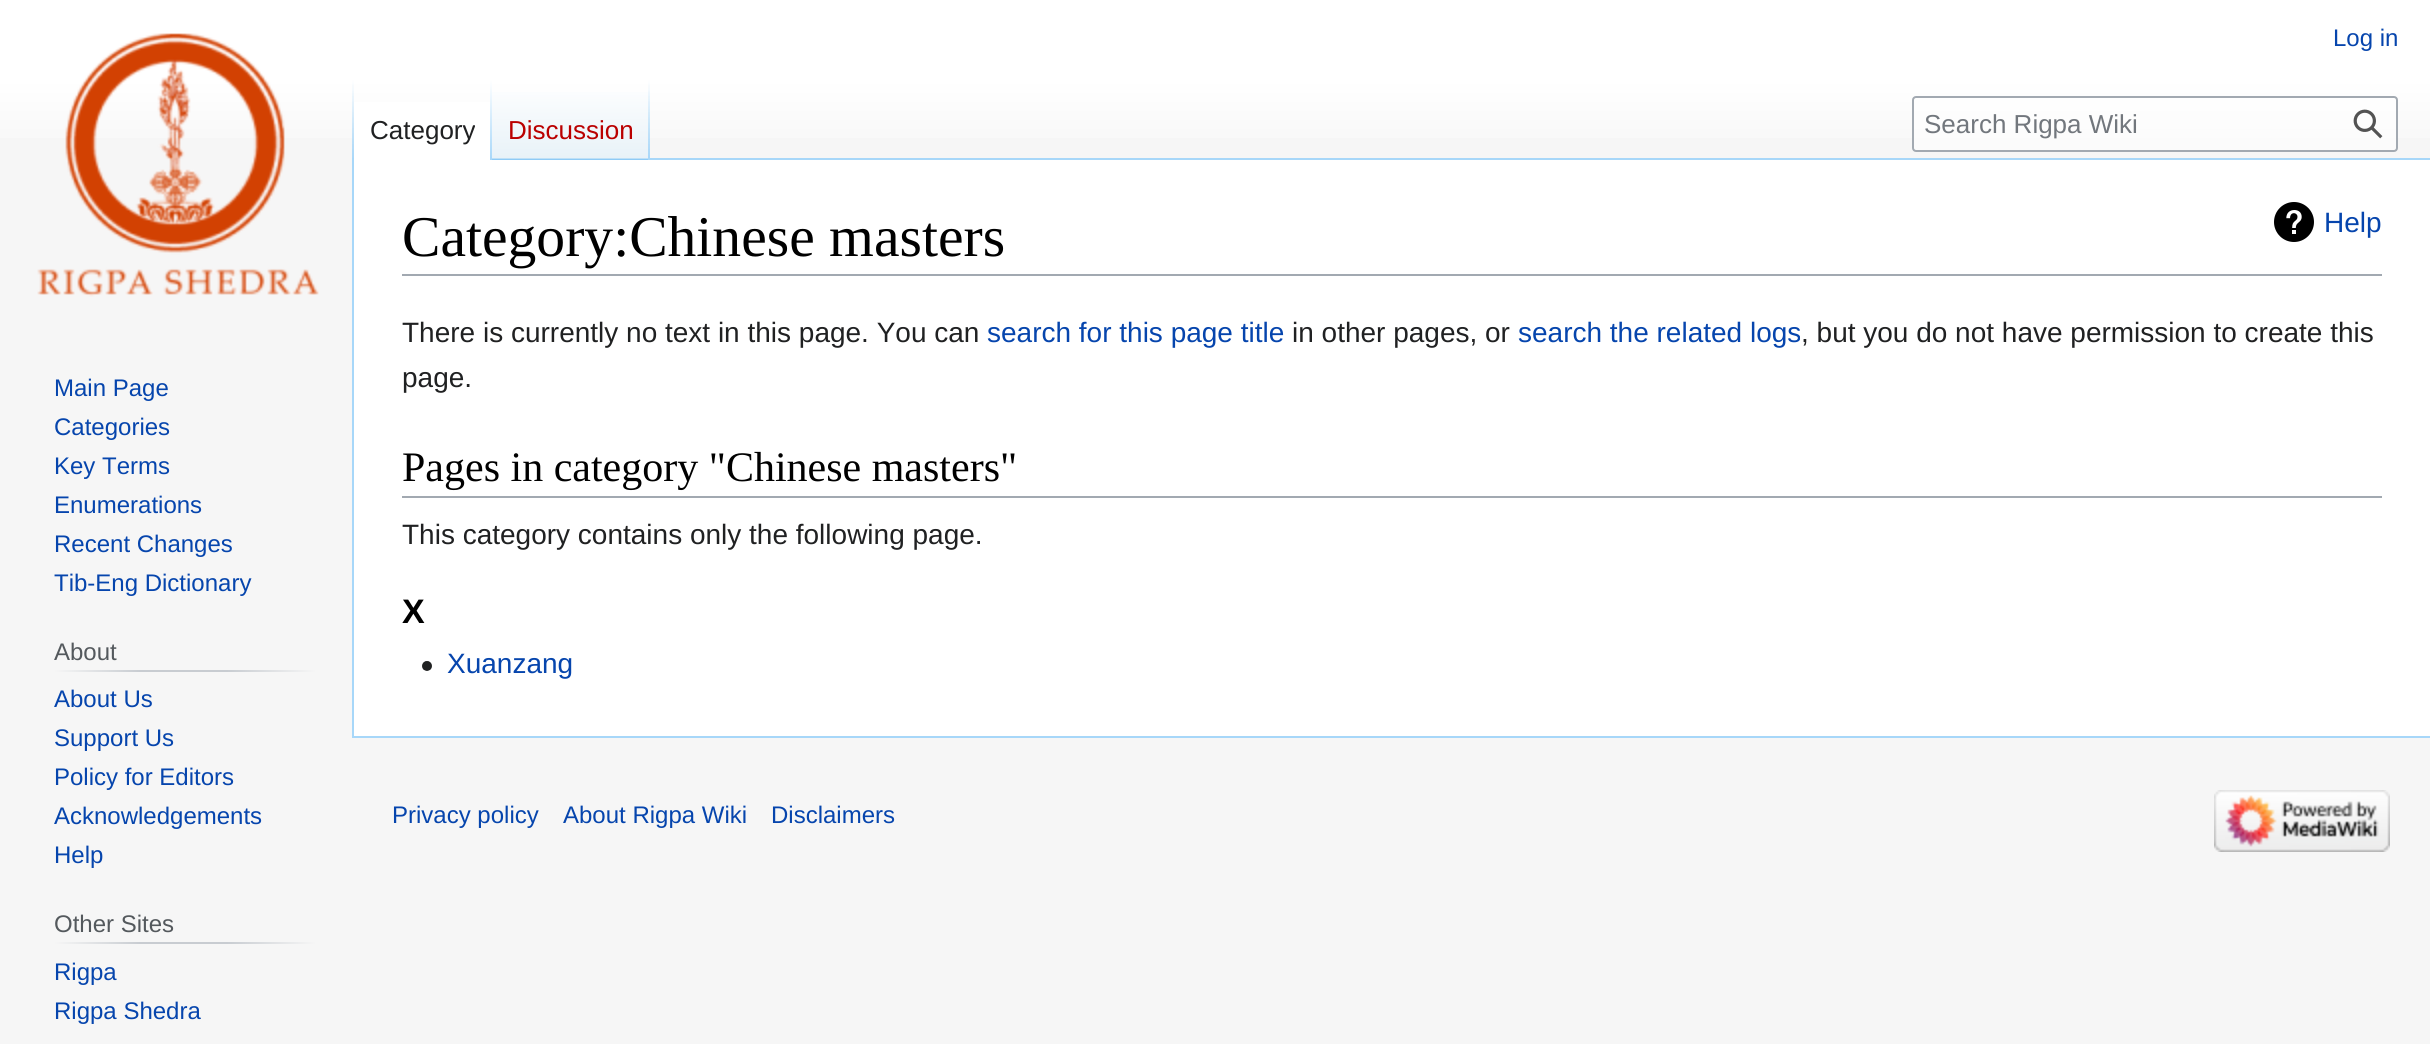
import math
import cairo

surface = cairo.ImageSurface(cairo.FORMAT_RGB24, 2430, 1044)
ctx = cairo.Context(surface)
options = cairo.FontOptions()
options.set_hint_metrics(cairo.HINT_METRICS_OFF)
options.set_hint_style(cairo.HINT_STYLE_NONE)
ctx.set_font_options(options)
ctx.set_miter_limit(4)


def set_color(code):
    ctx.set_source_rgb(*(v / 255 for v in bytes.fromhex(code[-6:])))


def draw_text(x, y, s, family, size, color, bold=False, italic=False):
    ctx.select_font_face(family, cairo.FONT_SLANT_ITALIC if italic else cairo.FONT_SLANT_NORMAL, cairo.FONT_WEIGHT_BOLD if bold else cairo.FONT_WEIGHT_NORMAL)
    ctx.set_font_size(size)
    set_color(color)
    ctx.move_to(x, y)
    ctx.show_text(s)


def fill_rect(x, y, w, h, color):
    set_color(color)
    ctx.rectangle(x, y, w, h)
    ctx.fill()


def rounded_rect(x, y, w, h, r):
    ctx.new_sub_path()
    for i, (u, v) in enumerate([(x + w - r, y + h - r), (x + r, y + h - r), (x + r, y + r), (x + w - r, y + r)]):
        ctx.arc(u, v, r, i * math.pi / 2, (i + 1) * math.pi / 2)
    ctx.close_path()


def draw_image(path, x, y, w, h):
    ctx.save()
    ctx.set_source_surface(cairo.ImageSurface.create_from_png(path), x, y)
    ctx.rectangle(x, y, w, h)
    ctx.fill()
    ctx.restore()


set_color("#f6f6f6")
ctx.paint()
gradient = cairo.LinearGradient(1215, 0, 1215, 160)
gradient.add_color_stop_rgba(0.5, 1, 1, 1, 1)
gradient.add_color_stop_rgba(1, 0.965, 0.965, 0.965, 1)
ctx.set_source(gradient)
ctx.rectangle(0, 0, 2430, 138)
ctx.fill()
draw_text(2333, 46, "Log in", "Liberation Sans", 24, "#0645ad")
fill_rect(352, 736, 2078, 2, "#a7d7f9")
fill_rect(352, 158, 2, 580, "#a7d7f9")
gradient = cairo.LinearGradient(353, 80, 353, 160)
gradient.add_color_stop_rgba(0, 0.655, 0.843, 0.976, 0)
gradient.add_color_stop_rgba(1, 0.655, 0.843, 0.976, 1)
ctx.set_source(gradient)
ctx.rectangle(352, 80, 2, 80)
ctx.fill()
fill_rect(354, 102, 136, 58, "#ffffff")
gradient = cairo.LinearGradient(491, 80, 491, 160)
gradient.add_color_stop_rgba(0, 1, 1, 1, 1)
gradient.add_color_stop_rgba(1, 0.655, 0.843, 0.976, 1)
ctx.set_source(gradient)
ctx.rectangle(490, 80, 2, 80)
ctx.fill()
draw_text(370, 139, "Category", "Liberation Sans", 26, "#202122")
gradient = cairo.LinearGradient(571, 160, 571, 80)
gradient.add_color_stop_rgba(0, 0.467, 0.757, 0.965, 1)
gradient.add_color_stop_rgba(0.03, 0.91, 0.949, 0.973, 1)
gradient.add_color_stop_rgba(1, 1, 1, 1, 1)
ctx.set_source(gradient)
ctx.rectangle(492, 92, 158, 68)
ctx.fill()
gradient = cairo.LinearGradient(649, 80, 649, 160)
gradient.add_color_stop_rgba(0, 0.655, 0.843, 0.976, 0)
gradient.add_color_stop_rgba(1, 0.655, 0.843, 0.976, 1)
ctx.set_source(gradient)
ctx.rectangle(648, 80, 2, 80)
ctx.fill()
draw_text(508, 139, "Discussion", "Liberation Sans", 26, "#ba0000")
ctx.set_source_rgba(1, 1, 1, 0.5)
rounded_rect(1913, 97, 484, 54, 3)
ctx.fill_preserve()
set_color("#a2a9b1")
ctx.stroke()
draw_text(1924, 133, "Search Rigpa Wiki", "Liberation Sans", 26, "#72777d")
draw_image("assets/img1.png", 2353, 109, 30, 30)
draw_image("assets/img2.png", 37, 33, 282, 264)
draw_text(54, 396, "Main Page", "Liberation Sans", 24, "#0645ad")
draw_text(54, 435, "Categories", "Liberation Sans", 24, "#0645ad")
draw_text(54, 474, "Key Terms", "Liberation Sans", 24, "#0645ad")
draw_text(54, 513, "Enumerations", "Liberation Sans", 24, "#0645ad")
draw_text(54, 552, "Recent Changes", "Liberation Sans", 24, "#0645ad")
draw_text(54, 591, "Tib-Eng Dictionary", "Liberation Sans", 24, "#0645ad")
gradient = cairo.LinearGradient(54, 671, 316, 671)
gradient.add_color_stop_rgba(0, 0.965, 0.965, 0.965, 1)
gradient.add_color_stop_rgba(0.33, 0.784, 0.8, 0.82, 1)
gradient.add_color_stop_rgba(0.66, 0.784, 0.8, 0.82, 1)
gradient.add_color_stop_rgba(1, 0.965, 0.965, 0.965, 1)
ctx.set_source(gradient)
ctx.rectangle(54, 670, 262, 2)
ctx.fill()
draw_text(54, 660, "About", "Liberation Sans", 24, "#54595d")
draw_text(54, 707, "About Us", "Liberation Sans", 24, "#0645ad")
draw_text(54, 746, "Support Us", "Liberation Sans", 24, "#0645ad")
draw_text(54, 785, "Policy for Editors", "Liberation Sans", 24, "#0645ad")
draw_text(54, 824, "Acknowledgements", "Liberation Sans", 24, "#0645ad")
draw_text(54, 863, "Help", "Liberation Sans", 24, "#0645ad")
gradient = cairo.LinearGradient(54, 943, 316, 943)
gradient.add_color_stop_rgba(0, 0.965, 0.965, 0.965, 1)
gradient.add_color_stop_rgba(0.33, 0.784, 0.8, 0.82, 1)
gradient.add_color_stop_rgba(0.66, 0.784, 0.8, 0.82, 1)
gradient.add_color_stop_rgba(1, 0.965, 0.965, 0.965, 1)
ctx.set_source(gradient)
ctx.rectangle(54, 942, 262, 2)
ctx.fill()
draw_text(54, 932, "Other Sites", "Liberation Sans", 24, "#54595d")
draw_text(54, 980, "Rigpa", "Liberation Sans", 24, "#0645ad")
draw_text(54, 1019, "Rigpa Shedra", "Liberation Sans", 24, "#0645ad")
fill_rect(354, 160, 2076, 576, "#ffffff")
fill_rect(650, 158, 1780, 2, "#a7d7f9")
fill_rect(402, 274, 1980, 2, "#a2a9b1")
draw_text(402, 256, "Category:Chinese masters", "Liberation Serif", 57.6, "#000000")
draw_image("assets/img3.png", 2274, 202, 40, 40)
draw_text(2324, 232, "Help", "Liberation Sans", 28, "#0645ad")
draw_text(402, 342, "There is currently no text in this page. You can", "Liberation Sans", 28, "#202122")
draw_text(987, 342, "search for this page title", "Liberation Sans", 28, "#0645ad")
draw_text(1292, 342, "in other pages, or", "Liberation Sans", 28, "#202122")
draw_text(1518, 342, "search the related logs", "Liberation Sans", 28, "#0645ad")
draw_text(1801, 342, ", but you do not have permission to create this", "Liberation Sans", 28, "#202122")
draw_text(402, 387, "page.", "Liberation Sans", 28, "#202122")
fill_rect(402, 496, 1980, 2, "#a2a9b1")
draw_text(402, 481, "Pages in category \"Chinese masters\"", "Liberation Serif", 42, "#000000")
draw_text(402, 544, "This category contains only the following page.", "Liberation Sans", 28, "#202122")
draw_text(402, 623, "X", "Liberation Sans", 34, "#000000", bold=True)
draw_image("assets/img4.png", 422, 661, 10, 10)
draw_text(447, 673, "Xuanzang", "Liberation Sans", 28, "#0645ad")
draw_text(392, 823, "Privacy policy", "Liberation Sans", 24, "#0645ad")
draw_text(563, 823, "About Rigpa Wiki", "Liberation Sans", 24, "#0645ad")
draw_text(771, 823, "Disclaimers", "Liberation Sans", 24, "#0645ad")
draw_image("assets/img5.png", 2214, 790, 176, 62)
surface.write_to_png("output.png")
